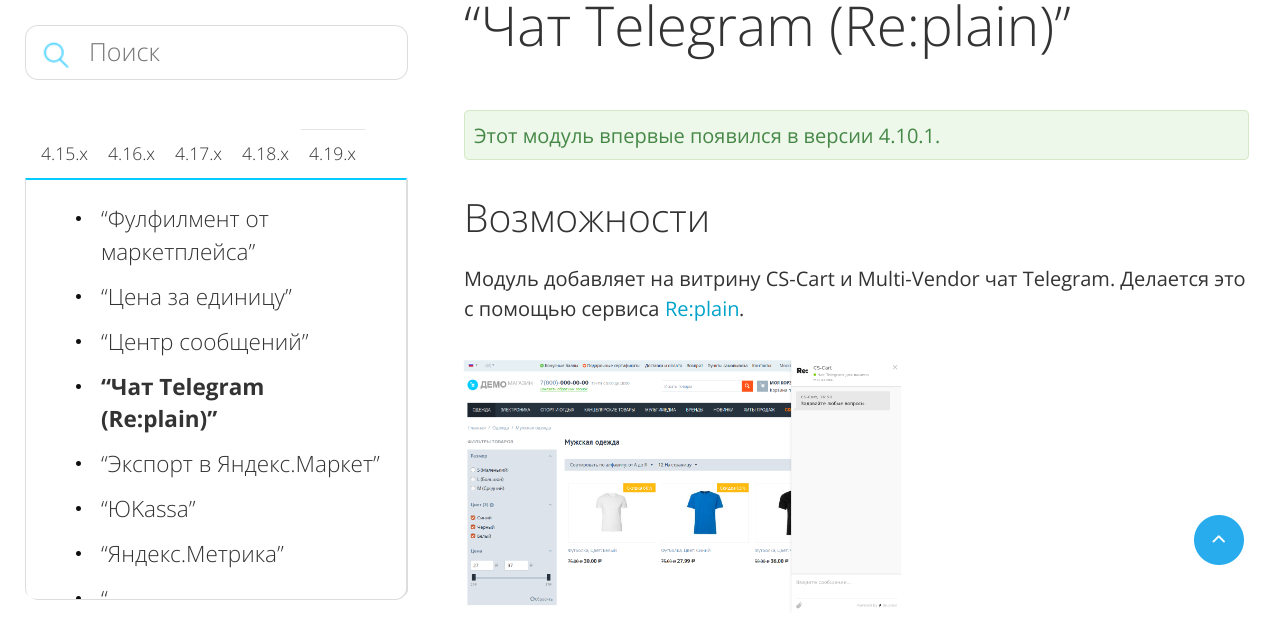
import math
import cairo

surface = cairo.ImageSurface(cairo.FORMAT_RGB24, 1273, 625)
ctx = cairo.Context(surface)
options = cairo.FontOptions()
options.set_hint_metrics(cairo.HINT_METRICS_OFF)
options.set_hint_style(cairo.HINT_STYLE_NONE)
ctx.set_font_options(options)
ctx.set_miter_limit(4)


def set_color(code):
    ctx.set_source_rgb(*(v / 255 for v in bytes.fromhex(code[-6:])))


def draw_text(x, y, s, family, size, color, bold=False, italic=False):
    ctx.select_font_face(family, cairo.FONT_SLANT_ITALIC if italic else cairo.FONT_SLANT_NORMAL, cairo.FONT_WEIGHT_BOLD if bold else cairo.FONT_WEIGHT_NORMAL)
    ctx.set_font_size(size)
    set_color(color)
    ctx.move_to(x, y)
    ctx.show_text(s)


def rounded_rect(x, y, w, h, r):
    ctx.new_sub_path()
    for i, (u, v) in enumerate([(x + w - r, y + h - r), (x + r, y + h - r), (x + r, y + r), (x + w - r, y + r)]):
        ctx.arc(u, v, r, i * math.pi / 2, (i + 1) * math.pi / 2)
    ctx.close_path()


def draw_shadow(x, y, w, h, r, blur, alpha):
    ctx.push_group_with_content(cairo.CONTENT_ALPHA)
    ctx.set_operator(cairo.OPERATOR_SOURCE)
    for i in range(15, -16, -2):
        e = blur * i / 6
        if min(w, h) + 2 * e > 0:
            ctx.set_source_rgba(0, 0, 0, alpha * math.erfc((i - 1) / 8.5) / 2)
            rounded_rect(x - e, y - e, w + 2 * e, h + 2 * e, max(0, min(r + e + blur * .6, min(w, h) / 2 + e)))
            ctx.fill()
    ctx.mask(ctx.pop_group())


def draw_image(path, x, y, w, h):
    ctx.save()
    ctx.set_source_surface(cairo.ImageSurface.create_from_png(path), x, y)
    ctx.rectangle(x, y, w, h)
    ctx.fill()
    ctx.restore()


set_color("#ffffff")
ctx.paint()
draw_image("assets/img1.png", 43, 42, 26, 26)
rounded_rect(25.5, 25.5, 382, 54, 12.5)
set_color("#dddddd")
ctx.set_line_width(1)
ctx.stroke()
draw_text(89, 61, "Поиск", "Open Sans Light", 25, "#757575")
draw_text(41, 160, "4.15.x", "Open Sans Light", 17.5, "#333333")
draw_text(108, 160, "4.16.x", "Open Sans Light", 17.5, "#333333")
draw_text(175, 160, "4.17.x", "Open Sans Light", 17.5, "#333333")
draw_text(242, 160, "4.18.x", "Open Sans Light", 17.5, "#333333")
ctx.save()
ctx.rectangle(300, 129, 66, 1)
ctx.clip()
set_color("#000000")
draw_shadow(301, 130, 64, 45, 0, 1, 0.3)
ctx.restore()
draw_text(309, 160, "4.19.x", "Open Sans Light", 17.5, "#333333")
set_color("#00ccfd")
ctx.new_path()
ctx.move_to(407, 178)
ctx.line_to(25, 178)
ctx.line_to(26, 180)
ctx.line_to(406, 180)
ctx.close_path()
ctx.fill()
set_color("#dddddd")
ctx.new_path()
ctx.move_to(408, 591)
ctx.curve_to(407, 593, 406, 595, 404, 596)
ctx.line_to(403, 595)
ctx.curve_to(405, 594, 406, 591, 406, 588)
ctx.line_to(406, 180)
ctx.line_to(408, 178)
ctx.close_path()
ctx.fill()
ctx.new_path()
ctx.move_to(38, 600)
ctx.line_to(395, 600)
ctx.curve_to(398, 600, 402, 599, 404, 596)
ctx.line_to(403, 595)
ctx.curve_to(401, 598, 398, 599, 395, 599)
ctx.line_to(38, 599)
ctx.curve_to(34, 599, 31, 598, 29, 596)
ctx.curve_to(31, 598, 34, 600, 38, 600)
ctx.close_path()
ctx.fill()
ctx.new_path()
ctx.move_to(26, 180)
ctx.line_to(26, 588)
ctx.curve_to(26, 591, 27, 594, 29, 596)
ctx.curve_to(26, 594, 25, 591, 25, 588)
ctx.line_to(25, 178)
ctx.close_path()
ctx.fill()
set_color("#0f0f0f")
ctx.arc(78.5, 218.5, 2.5, 0, 2 * math.pi)
ctx.fill()
draw_text(101, 227, "“Фулфилмент от", "Open Sans Light", 22.5, "#333333")
draw_text(101, 260, "маркетплейса”", "Open Sans Light", 22.5, "#333333")
set_color("#0f0f0f")
ctx.new_path()
ctx.arc(78.5, 296.5, 2.5, 0, 2 * math.pi)
ctx.fill()
draw_text(101, 305, "“Цена за единицу”", "Open Sans Light", 22.5, "#333333")
set_color("#0f0f0f")
ctx.new_path()
ctx.arc(78.5, 341.5, 2.5, 0, 2 * math.pi)
ctx.fill()
draw_text(101, 350, "“Центр сообщений”", "Open Sans Light", 22.5, "#333333")
set_color("#0f0f0f")
ctx.new_path()
ctx.arc(78.5, 386.5, 2.5, 0, 2 * math.pi)
ctx.fill()
draw_text(101, 395, "“Чат Telegram", "Open Sans", 22.5, "#333333", bold=True)
draw_text(101, 427, "(Re:plain)”", "Open Sans", 22.5, "#333333", bold=True)
set_color("#0f0f0f")
ctx.new_path()
ctx.arc(78.5, 463.5, 2.5, 0, 2 * math.pi)
ctx.fill()
draw_text(101, 472, "“Экспорт в Яндекс.Маркет”", "Open Sans Light", 22.5, "#333333")
set_color("#0f0f0f")
ctx.new_path()
ctx.arc(78.5, 508.5, 2.5, 0, 2 * math.pi)
ctx.fill()
draw_text(101, 517, "“ЮKassa”", "Open Sans Light", 22.5, "#333333")
set_color("#0f0f0f")
ctx.new_path()
ctx.arc(78.5, 553.5, 2.5, 0, 2 * math.pi)
ctx.fill()
draw_text(101, 562, "“Яндекс.Метрика”", "Open Sans Light", 22.5, "#333333")
draw_text(101, 607, "“", "Open Sans Light", 22.5, "#333333")
ctx.save()
ctx.new_path()
ctx.move_to(26, 180)
ctx.line_to(406, 180)
ctx.line_to(406, 588)
ctx.curve_to(406, 594, 401, 599, 395, 599)
ctx.line_to(37, 599)
ctx.curve_to(31, 599, 26, 594, 26, 588)
ctx.close_path()
ctx.clip()
set_color("#0f0f0f")
ctx.arc(78.5, 598.5, 2.5, 0, 2 * math.pi)
ctx.fill()
ctx.restore()
draw_text(464, 46, "“Чат Telegram (Re:plain)”", "Open Sans Light", 55, "#333333")
set_color("#edf7ea")
rounded_rect(464.5, 110.5, 784, 49, 4.5)
ctx.fill_preserve()
set_color("#d6e9c6")
ctx.stroke()
draw_text(474, 143, "Этот модуль впервые появился в версии 4.10.1.", "Open Sans", 20, "#468847")
draw_text(464, 232, "Возможности", "Open Sans Light", 39, "#333333")
draw_text(464, 286, "Модуль добавляет на витрину CS-Cart и Multi-Vendor чат Telegram. Делается это", "Open Sans", 20, "#333333")
draw_text(464, 316, "с помощью сервиса", "Open Sans", 20, "#333333")
draw_text(665, 316, "Re:plain", "Open Sans", 20, "#00a3ca")
draw_text(739, 316, ".", "Open Sans", 20, "#333333")
draw_image("assets/img2.png", 463, 360, 439, 253)
set_color("#28aced")
ctx.arc(1219, 540, 25, 0, 2 * math.pi)
ctx.fill()
draw_image("assets/img3.png", 1212, 535, 13, 8)
surface.write_to_png("output.png")
